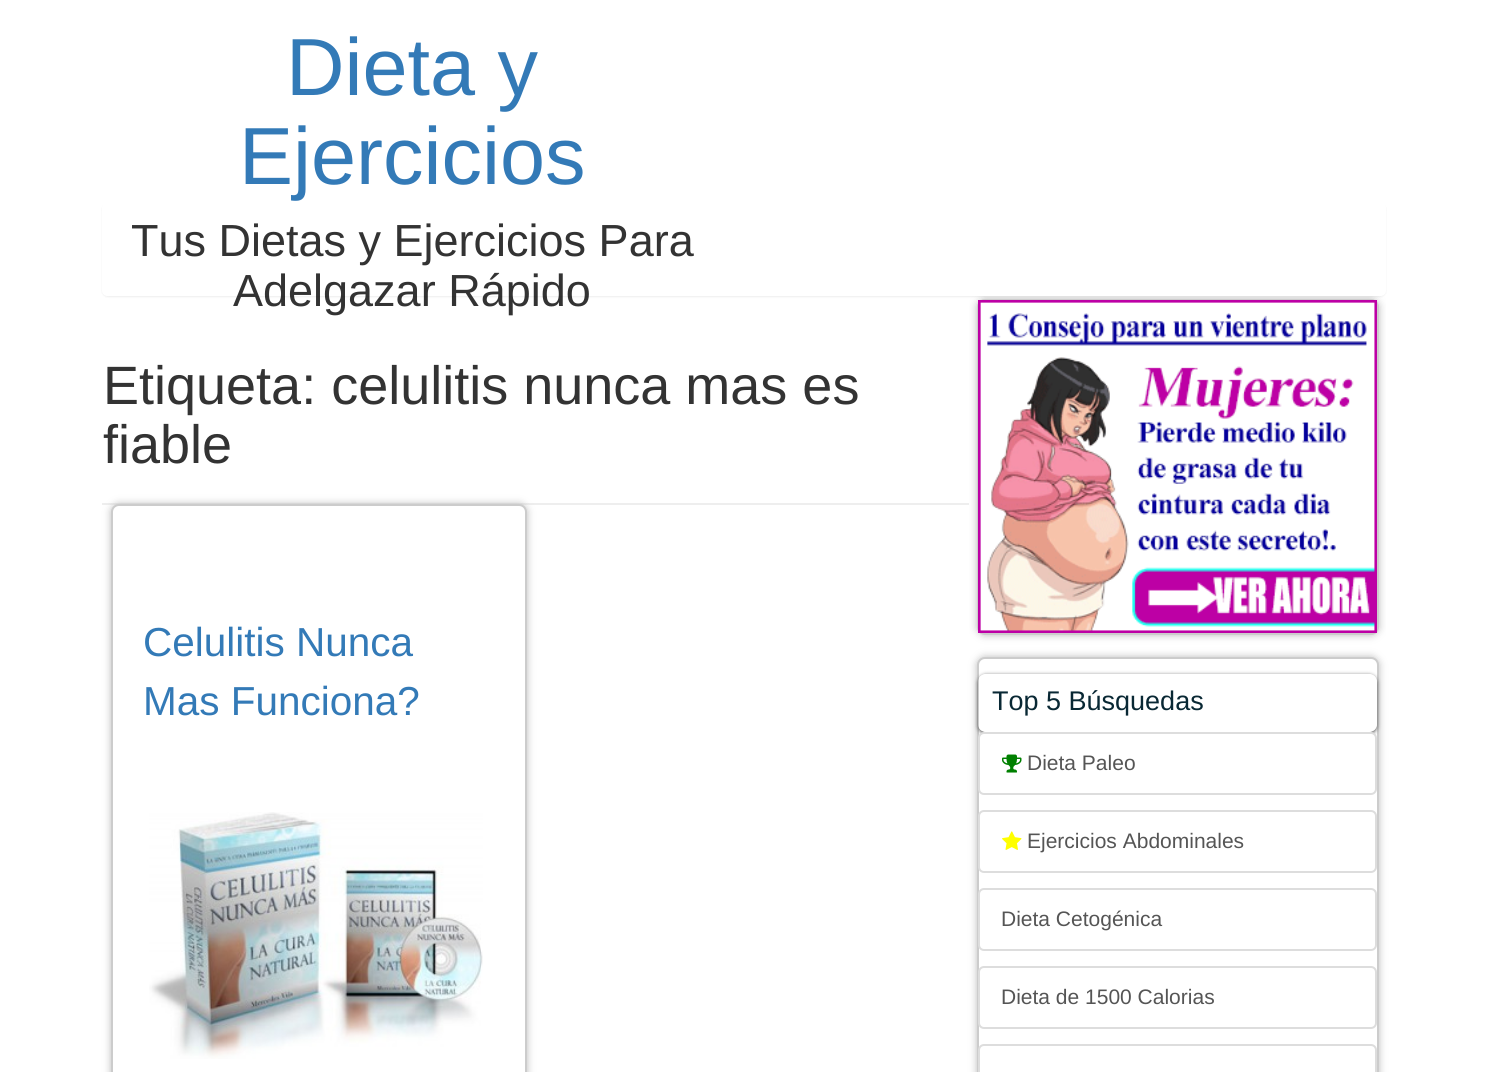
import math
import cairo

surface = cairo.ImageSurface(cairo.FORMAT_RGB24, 1488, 1072)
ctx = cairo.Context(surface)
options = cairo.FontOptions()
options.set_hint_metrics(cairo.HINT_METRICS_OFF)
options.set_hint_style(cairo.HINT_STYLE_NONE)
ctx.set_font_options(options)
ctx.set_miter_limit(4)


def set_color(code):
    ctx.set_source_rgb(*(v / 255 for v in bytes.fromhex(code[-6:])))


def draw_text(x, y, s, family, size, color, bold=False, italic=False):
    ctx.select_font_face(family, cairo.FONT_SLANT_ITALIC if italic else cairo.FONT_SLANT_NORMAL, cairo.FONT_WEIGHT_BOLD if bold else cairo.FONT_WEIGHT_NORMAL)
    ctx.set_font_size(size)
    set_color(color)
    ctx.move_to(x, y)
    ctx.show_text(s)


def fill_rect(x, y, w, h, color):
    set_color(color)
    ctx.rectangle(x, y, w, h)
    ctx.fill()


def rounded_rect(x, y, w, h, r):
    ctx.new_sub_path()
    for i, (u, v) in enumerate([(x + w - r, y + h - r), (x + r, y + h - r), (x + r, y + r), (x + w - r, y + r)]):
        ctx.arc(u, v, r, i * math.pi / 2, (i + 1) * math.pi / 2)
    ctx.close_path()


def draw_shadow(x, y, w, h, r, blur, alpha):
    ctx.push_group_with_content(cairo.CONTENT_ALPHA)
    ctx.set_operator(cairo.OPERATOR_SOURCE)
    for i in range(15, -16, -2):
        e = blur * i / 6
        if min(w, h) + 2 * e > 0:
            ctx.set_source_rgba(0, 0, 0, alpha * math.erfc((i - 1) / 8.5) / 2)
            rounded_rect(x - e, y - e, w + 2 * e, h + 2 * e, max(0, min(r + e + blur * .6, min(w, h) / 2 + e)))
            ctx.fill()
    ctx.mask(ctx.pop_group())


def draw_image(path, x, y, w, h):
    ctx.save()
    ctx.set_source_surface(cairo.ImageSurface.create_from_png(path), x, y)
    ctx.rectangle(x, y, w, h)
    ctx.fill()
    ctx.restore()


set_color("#ffffff")
ctx.paint()
draw_text(286, 95, "Dieta y", "Liberation Sans", 81, "#337ab7")
draw_text(239, 184, "Ejercicios", "Liberation Sans", 81, "#337ab7")
draw_text(131, 256, "Tus Dietas y Ejercicios Para", "Liberation Sans", 45, "#333333")
draw_text(233, 306, "Adelgazar Rápido", "Liberation Sans", 45, "#333333")
fill_rect(102, 503, 867, 2, "#eeeeee")
ctx.save()
ctx.rectangle(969, 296, 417, 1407)
ctx.clip()
set_color("#bbbbbb")
draw_shadow(977, 299, 402, 336, 8, 4, 1)
ctx.restore()
rounded_rect(978, 300, 400, 334, 7)
set_color("#cccccc")
ctx.stroke()
draw_image("assets/img2.png", 978, 300, 399, 333)
ctx.save()
ctx.set_fill_rule(cairo.FILL_RULE_EVEN_ODD)
ctx.new_path()
ctx.move_to(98, 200)
ctx.line_to(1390, 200)
ctx.line_to(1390, 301)
ctx.line_to(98, 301)
ctx.close_path()
ctx.move_to(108, 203)
ctx.line_to(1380, 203)
ctx.curve_to(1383.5, 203, 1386, 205.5, 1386, 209)
ctx.line_to(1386, 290)
ctx.curve_to(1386, 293.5, 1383.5, 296, 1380, 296)
ctx.line_to(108, 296)
ctx.curve_to(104.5, 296, 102, 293.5, 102, 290)
ctx.line_to(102, 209)
ctx.curve_to(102, 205.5, 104.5, 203, 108, 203)
ctx.close_path()
ctx.clip()
set_color("#000000")
draw_shadow(102, 204, 1284, 93, 6, 1, 0.07)
ctx.restore()
draw_text(103, 404, "Etiqueta: celulitis nunca mas es", "Liberation Sans", 54, "#333333")
draw_text(103, 463, "fiable", "Liberation Sans", 54, "#333333")
set_color("#bbbbbb")
draw_shadow(111, 504, 416, 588, 8, 4, 1)
set_color("#ffffff")
rounded_rect(112, 505, 414, 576, 7)
ctx.fill_preserve()
set_color("#cccccc")
ctx.stroke()
draw_text(143, 656, "Celulitis Nunca", "Liberation Sans", 40.5, "#337ab7")
draw_text(143, 715, "Mas Funciona?", "Liberation Sans", 40.5, "#337ab7")
draw_image("assets/img1.png", 149, 812, 334, 247)
set_color("#bbbbbb")
draw_shadow(977, 657, 402, 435, 8, 4, 1)
set_color("#ffffff")
rounded_rect(978, 658, 400, 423, 7)
ctx.fill_preserve()
set_color("#cccccc")
ctx.stroke()
ctx.save()
ctx.set_fill_rule(cairo.FILL_RULE_EVEN_ODD)
ctx.new_path()
ctx.move_to(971, 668)
ctx.line_to(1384, 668)
ctx.line_to(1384, 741)
ctx.line_to(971, 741)
ctx.close_path()
ctx.move_to(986, 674)
ctx.line_to(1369, 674)
ctx.curve_to(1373.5, 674, 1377, 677.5, 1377, 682)
ctx.line_to(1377, 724)
ctx.curve_to(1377, 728.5, 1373.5, 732, 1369, 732)
ctx.line_to(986, 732)
ctx.curve_to(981.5, 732, 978, 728.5, 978, 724)
ctx.line_to(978, 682)
ctx.curve_to(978, 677.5, 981.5, 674, 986, 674)
ctx.close_path()
ctx.clip()
set_color("#555555")
draw_shadow(978, 675, 399, 59, 8, 2, 1)
ctx.restore()
draw_text(992, 710, "Top 5 Búsquedas", "Liberation Sans", 27, "#092834")
set_color("#ffffff")
rounded_rect(979, 733, 397, 61, 5)
ctx.fill_preserve()
set_color("#dddddd")
ctx.stroke()
draw_image("assets/img3.png", 1002, 754, 20, 19)
draw_text(1027, 770, "Dieta Paleo", "Liberation Sans", 21, "#555555")
set_color("#ffffff")
rounded_rect(979, 811, 397, 61, 5)
ctx.fill_preserve()
set_color("#dddddd")
ctx.stroke()
draw_image("assets/img4.png", 1002, 831, 20, 19)
draw_text(1027, 848, "Ejercicios Abdominales", "Liberation Sans", 21, "#555555")
set_color("#ffffff")
rounded_rect(979, 889, 397, 61, 5)
ctx.fill_preserve()
set_color("#dddddd")
ctx.stroke()
draw_text(1001, 926, "Dieta Cetogénica", "Liberation Sans", 21, "#555555")
set_color("#ffffff")
rounded_rect(979, 967, 397, 61, 5)
ctx.fill_preserve()
set_color("#dddddd")
ctx.stroke()
draw_text(1001, 1004, "Dieta de 1500 Calorias", "Liberation Sans", 21, "#555555")
set_color("#ffffff")
rounded_rect(979, 1045, 397, 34, 5)
ctx.fill_preserve()
set_color("#dddddd")
ctx.stroke()
surface.write_to_png("output.png")
